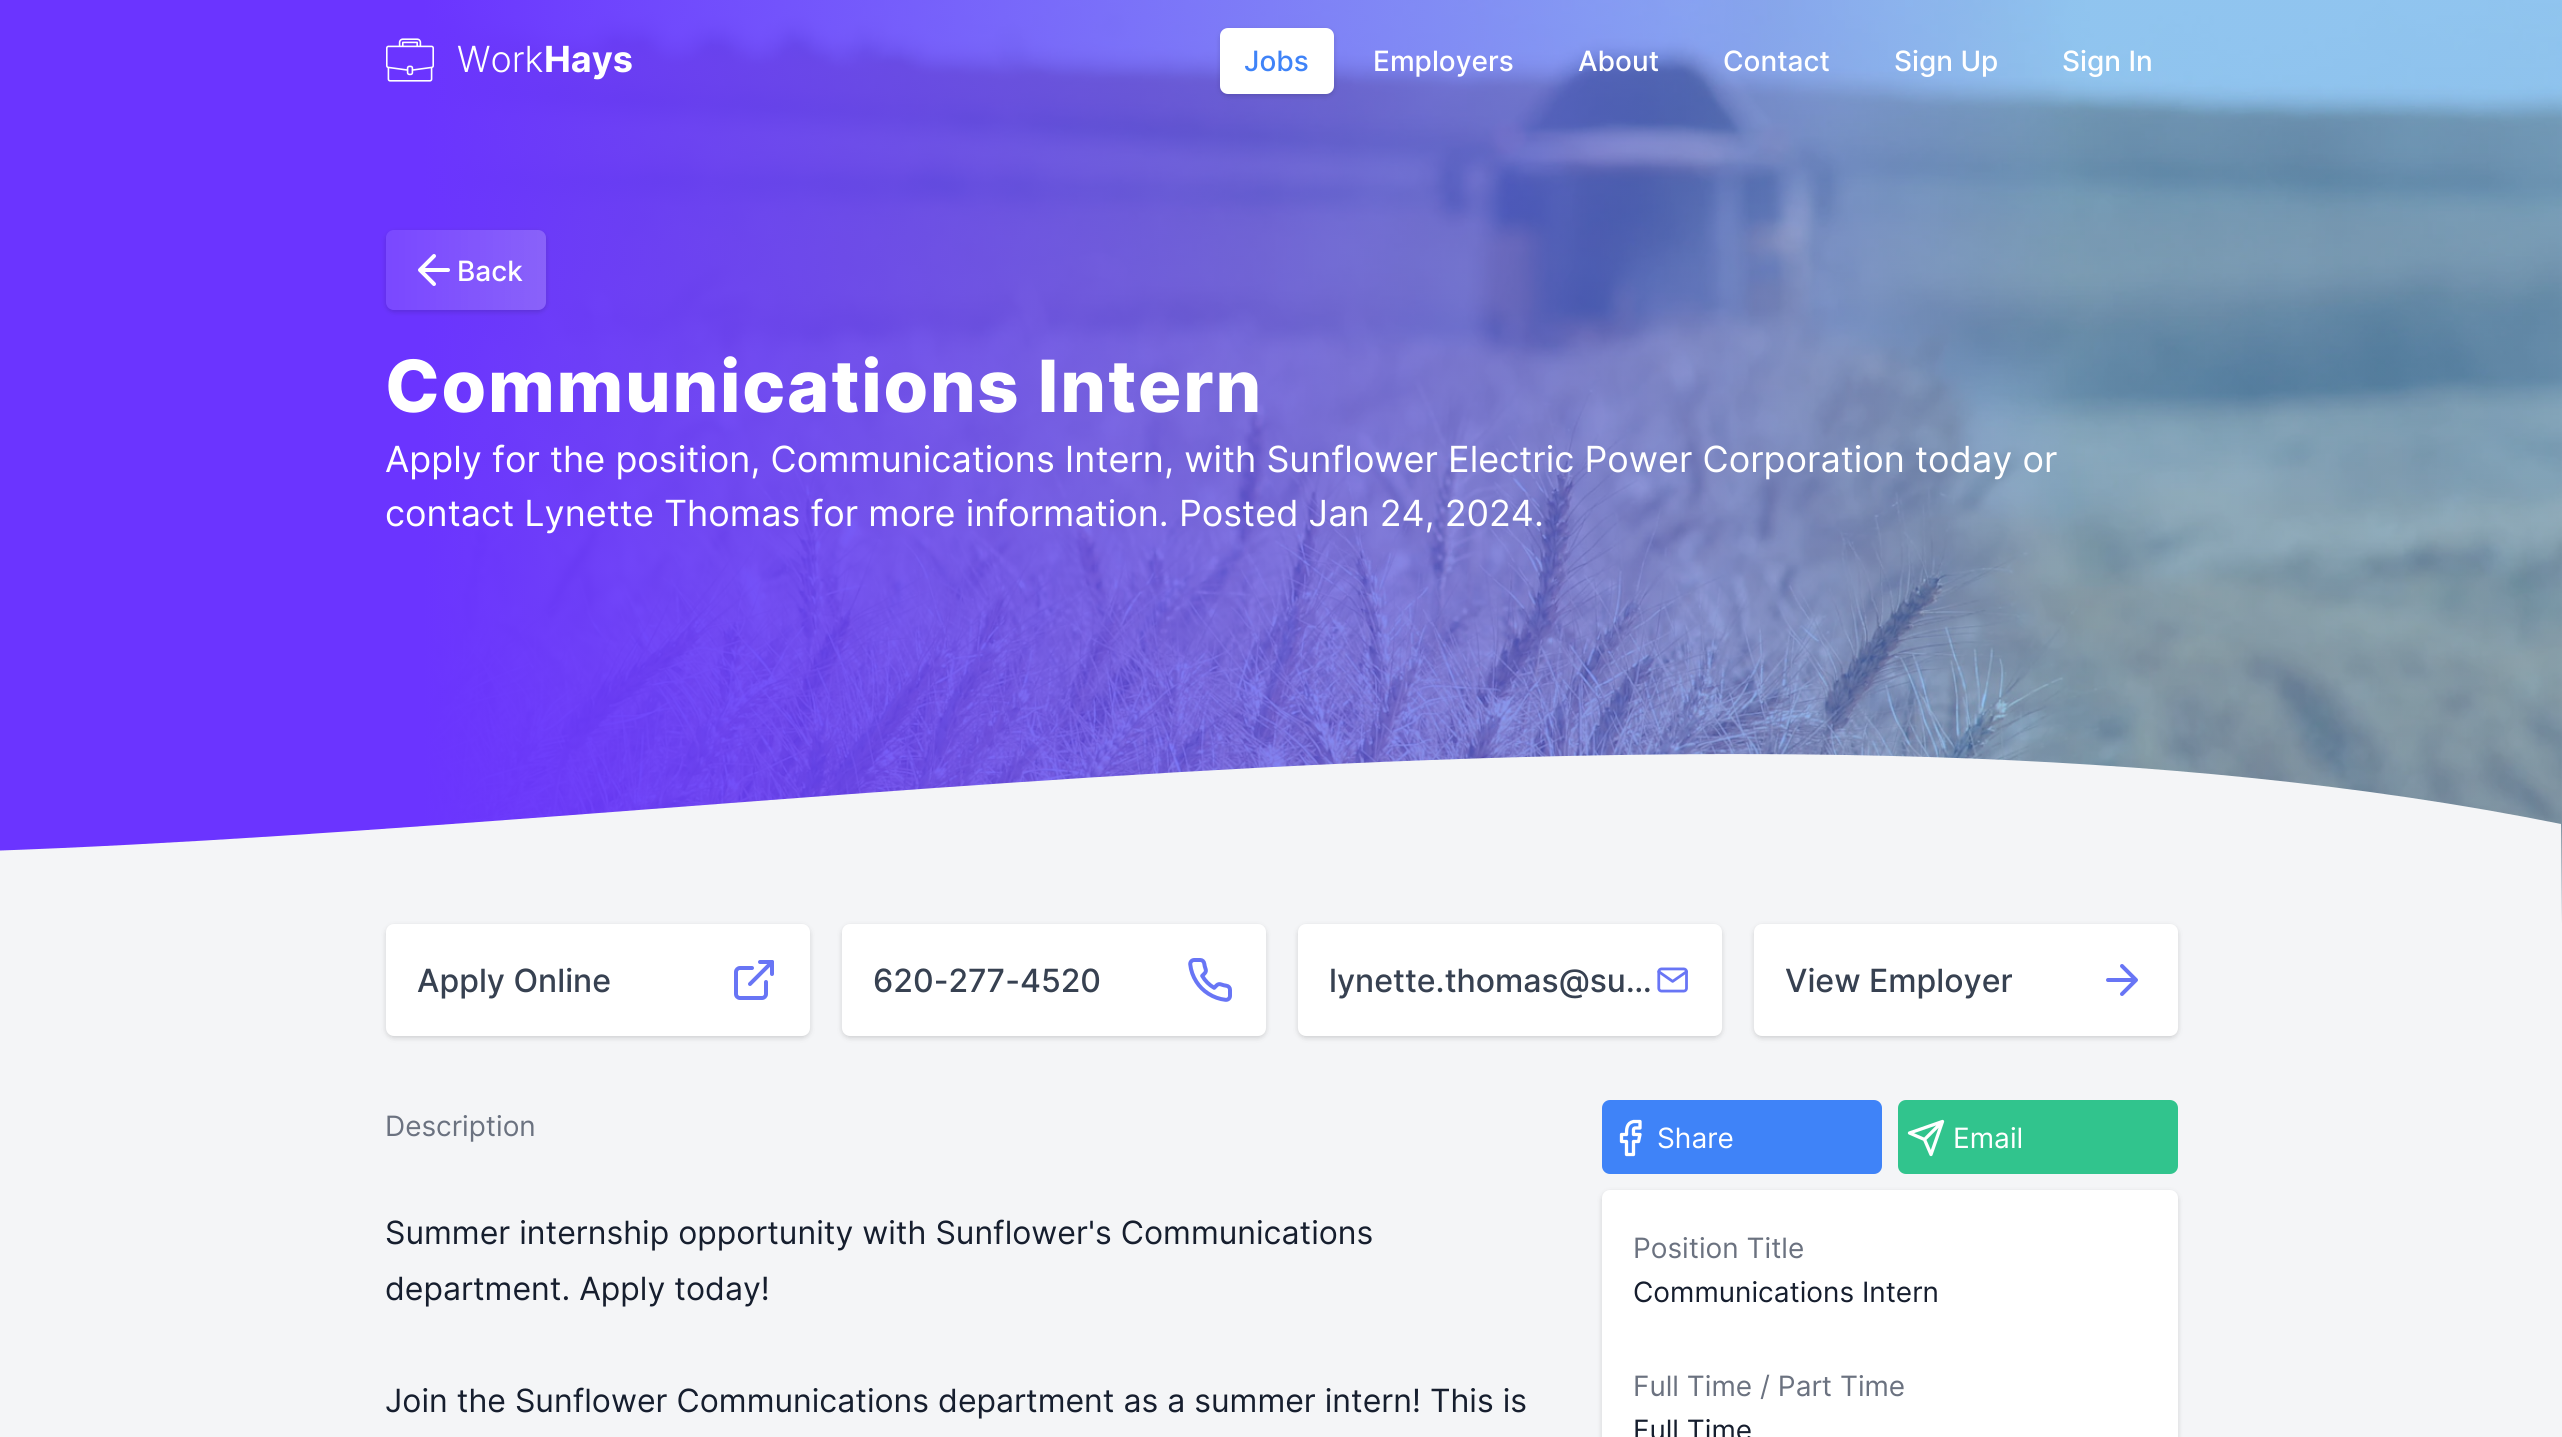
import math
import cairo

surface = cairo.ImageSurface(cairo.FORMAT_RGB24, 2562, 1437)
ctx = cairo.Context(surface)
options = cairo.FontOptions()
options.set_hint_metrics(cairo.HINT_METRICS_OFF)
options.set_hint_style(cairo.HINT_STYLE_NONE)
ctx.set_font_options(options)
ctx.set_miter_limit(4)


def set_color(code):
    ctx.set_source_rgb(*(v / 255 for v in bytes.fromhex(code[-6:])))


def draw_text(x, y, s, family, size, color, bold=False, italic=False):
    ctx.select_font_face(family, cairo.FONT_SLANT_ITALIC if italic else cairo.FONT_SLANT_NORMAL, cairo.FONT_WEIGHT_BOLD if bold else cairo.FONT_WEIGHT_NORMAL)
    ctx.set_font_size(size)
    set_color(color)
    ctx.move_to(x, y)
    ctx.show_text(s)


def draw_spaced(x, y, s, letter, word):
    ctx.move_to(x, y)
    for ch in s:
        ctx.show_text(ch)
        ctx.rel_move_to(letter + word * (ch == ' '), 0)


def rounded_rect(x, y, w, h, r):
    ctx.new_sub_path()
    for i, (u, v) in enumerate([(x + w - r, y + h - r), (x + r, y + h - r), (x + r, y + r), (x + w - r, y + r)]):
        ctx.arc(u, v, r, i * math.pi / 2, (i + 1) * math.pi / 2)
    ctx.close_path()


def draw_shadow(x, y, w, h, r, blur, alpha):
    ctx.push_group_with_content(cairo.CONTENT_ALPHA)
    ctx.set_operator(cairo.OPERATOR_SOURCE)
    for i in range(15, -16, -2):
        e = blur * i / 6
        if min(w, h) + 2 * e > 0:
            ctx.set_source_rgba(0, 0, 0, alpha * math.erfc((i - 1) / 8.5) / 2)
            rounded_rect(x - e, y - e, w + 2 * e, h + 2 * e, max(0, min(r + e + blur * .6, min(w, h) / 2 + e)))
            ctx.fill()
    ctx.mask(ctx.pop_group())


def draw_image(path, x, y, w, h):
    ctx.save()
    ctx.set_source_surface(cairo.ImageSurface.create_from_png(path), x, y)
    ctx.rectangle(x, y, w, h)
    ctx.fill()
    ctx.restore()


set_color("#f4f5f7")
ctx.paint()
draw_image("assets/img1.png", 0, 0, 2562, 923)
draw_image("assets/img2.png", 386, 38, 48, 44)
draw_text(457, 72, "Work", "Inter Light", 36, "#ffffff")
draw_text(544, 72, "Hays", "Inter", 36, "#ffffff", bold=True)
set_color("#000000")
draw_shadow(1220, 30, 114, 66, 8, 2, 0.06)
draw_shadow(1220, 30, 114, 66, 8, 3, 0.1)
set_color("#ffffff")
rounded_rect(1220, 28, 114, 66, 8)
ctx.fill()
draw_text(1244, 71, "Jobs", "Inter Medium", 28, "#3f83f8")
draw_text(1373, 71, "Employers", "Inter Medium", 28, "#ffffff")
draw_text(1578, 71, "About", "Inter Medium", 28, "#ffffff")
draw_text(1723, 71, "Contact", "Inter Medium", 28, "#ffffff")
draw_text(1894, 71, "Sign Up", "Inter Medium", 28, "#ffffff")
draw_text(2062, 71, "Sign In", "Inter Medium", 28, "#ffffff")
ctx.save()
ctx.set_fill_rule(cairo.FILL_RULE_EVEN_ODD)
ctx.new_path()
ctx.move_to(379, 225)
ctx.line_to(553, 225)
ctx.line_to(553, 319)
ctx.line_to(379, 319)
ctx.close_path()
ctx.move_to(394, 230)
ctx.line_to(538, 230)
ctx.curve_to(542.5, 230, 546, 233.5, 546, 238)
ctx.line_to(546, 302)
ctx.curve_to(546, 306.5, 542.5, 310, 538, 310)
ctx.line_to(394, 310)
ctx.curve_to(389.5, 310, 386, 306.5, 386, 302)
ctx.line_to(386, 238)
ctx.curve_to(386, 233.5, 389.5, 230, 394, 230)
ctx.close_path()
ctx.clip()
set_color("#000000")
draw_shadow(386, 232, 160, 80, 8, 2, 0.06)
ctx.restore()
ctx.save()
ctx.set_fill_rule(cairo.FILL_RULE_EVEN_ODD)
ctx.new_path()
ctx.move_to(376, 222)
ctx.line_to(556, 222)
ctx.line_to(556, 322)
ctx.line_to(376, 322)
ctx.close_path()
ctx.move_to(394, 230)
ctx.line_to(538, 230)
ctx.curve_to(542.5, 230, 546, 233.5, 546, 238)
ctx.line_to(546, 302)
ctx.curve_to(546, 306.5, 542.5, 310, 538, 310)
ctx.line_to(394, 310)
ctx.curve_to(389.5, 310, 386, 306.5, 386, 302)
ctx.line_to(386, 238)
ctx.curve_to(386, 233.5, 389.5, 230, 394, 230)
ctx.close_path()
ctx.clip()
set_color("#000000")
draw_shadow(386, 232, 160, 80, 8, 3, 0.1)
ctx.restore()
gradient = cairo.LinearGradient(386, 270, 546, 270)
gradient.add_color_stop_rgba(0, 1, 1, 1, 0.1)
gradient.add_color_stop_rgba(1, 1, 1, 1, 0.2)
ctx.set_source(gradient)
rounded_rect(386, 230, 160, 80, 8)
ctx.fill()
ctx.new_path()
ctx.move_to(448, 270)
ctx.line_to(420, 270)
ctx.move_to(434, 284)
ctx.line_to(420, 270)
ctx.line_to(434, 256)
set_color("#ffffff")
ctx.set_line_width(4)
ctx.set_line_cap(cairo.LINE_CAP_ROUND)
ctx.set_line_join(cairo.LINE_JOIN_ROUND)
ctx.stroke()
draw_text(457, 281, "Back", "Inter Medium", 28, "#ffffff")
ctx.select_font_face("Inter ExtraBold")
ctx.set_font_size(72)
draw_spaced(385, 412, "Communications Intern", 1.8, 0)
draw_text(385, 472, "Apply for the position, Communications Intern, with Sunflower Electric Power Corporation today or", "Inter", 36, "#ffffff")
draw_text(385, 526, "contact Lynette Thomas for more information. Posted Jan 24, 2024.", "Inter", 36, "#ffffff")
set_color("#f4f5f7")
ctx.new_path()
ctx.move_to(-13, 851)
ctx.curve_to(739, 825, 1768, 664, 2561, 824)
ctx.line_to(2562, 924)
ctx.line_to(0, 924)
ctx.close_path()
ctx.fill()
set_color("#000000")
draw_shadow(386, 926, 424, 112, 8, 2, 0.06)
draw_shadow(386, 926, 424, 112, 8, 3, 0.1)
set_color("#ffffff")
rounded_rect(386, 924, 424, 112, 8)
ctx.fill()
draw_text(417, 992, "Apply Online", "Inter Medium", 32, "#374151")
draw_image("assets/img3.png", 734, 960, 40, 40)
set_color("#000000")
draw_shadow(842, 926, 424, 112, 8, 2, 0.06)
draw_shadow(842, 926, 424, 112, 8, 3, 0.1)
set_color("#ffffff")
rounded_rect(842, 924, 424, 112, 8)
ctx.fill()
draw_text(873, 992, "620-277-4520", "Inter Medium", 32, "#374151")
draw_image("assets/img4.png", 1188, 958, 44, 44)
set_color("#000000")
draw_shadow(1298, 926, 424, 112, 8, 2, 0.06)
draw_shadow(1298, 926, 424, 112, 8, 3, 0.1)
set_color("#ffffff")
rounded_rect(1298, 924, 424, 112, 8)
ctx.fill()
draw_text(1329, 992, "lynette.thomas@su…", "Inter Medium", 32, "#374151")
draw_image("assets/img5.png", 1657, 967, 31, 26)
set_color("#000000")
draw_shadow(1754, 926, 424, 112, 8, 2, 0.06)
draw_shadow(1754, 926, 424, 112, 8, 3, 0.1)
set_color("#ffffff")
rounded_rect(1754, 924, 424, 112, 8)
ctx.fill()
ctx.save()
ctx.rectangle(1786, 956, 226, 48)
ctx.clip()
draw_text(1785, 992, "View Employer", "Inter Medium", 32, "#374151")
ctx.restore()
ctx.new_path()
ctx.move_to(2108, 980)
ctx.line_to(2136, 980)
ctx.move_to(2122, 966)
ctx.line_to(2136, 980)
ctx.line_to(2122, 994)
set_color("#6875f5")
ctx.stroke()
draw_text(385, 1136, "Description", "Inter", 28, "#6b7280")
draw_text(385, 1244, "Summer internship opportunity with Sunflower's Communications", "Inter", 32, "#161e2e")
draw_text(385, 1300, "department. Apply today!", "Inter", 32, "#161e2e")
draw_text(385, 1412, "Join the Sunflower Communications department as a summer intern! This is", "Inter", 32, "#161e2e")
set_color("#3f83f8")
rounded_rect(1602, 1100, 280, 74, 8)
ctx.fill()
ctx.new_path()
ctx.move_to(1640, 1121.5)
ctx.line_to(1633.5, 1121.5)
ctx.curve_to(1626.5, 1123, 1626.5, 1129, 1626.5, 1134.5)
ctx.line_to(1621.5, 1134.5)
ctx.line_to(1621.5, 1141.5)
ctx.line_to(1626.5, 1141.5)
ctx.line_to(1626.5, 1154.5)
ctx.line_to(1633.5, 1154.5)
ctx.line_to(1633.5, 1141.5)
ctx.line_to(1638.5, 1141.5)
ctx.line_to(1640, 1134.5)
ctx.line_to(1633.5, 1134.5)
ctx.curve_to(1633.5, 1127, 1632.5, 1128, 1640, 1128)
ctx.close_path()
set_color("#ffffff")
ctx.set_line_width(3.3)
ctx.stroke()
draw_text(1657, 1148, "Share", "Inter", 28, "#ffffff")
set_color("#31c48d")
rounded_rect(1898, 1100, 280, 74, 8)
ctx.fill()
ctx.new_path()
ctx.move_to(1942.5, 1121.5)
ctx.line_to(1924.5, 1139.5)
ctx.move_to(1942.5, 1121.5)
ctx.line_to(1931, 1154.5)
ctx.line_to(1924.5, 1139.5)
ctx.line_to(1909.5, 1133)
ctx.close_path()
set_color("#ffffff")
ctx.stroke()
draw_text(1953, 1148, "Email", "Inter", 28, "#ffffff")
set_color("#000000")
draw_shadow(1602, 1192, 576, 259, 8, 2, 0.06)
draw_shadow(1602, 1192, 576, 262, 8, 3, 0.1)
set_color("#ffffff")
rounded_rect(1602, 1190, 576, 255, 8)
ctx.fill()
draw_text(1633, 1258, "Position Title", "Inter", 28, "#6b7280")
draw_text(1633, 1302, "Communications Intern", "Inter", 28, "#161e2e")
draw_text(1633, 1396, "Full Time / Part Time", "Inter", 28, "#6b7280")
draw_text(1633, 1440, "Full Time", "Inter", 28, "#161e2e")
surface.write_to_png("output.png")
